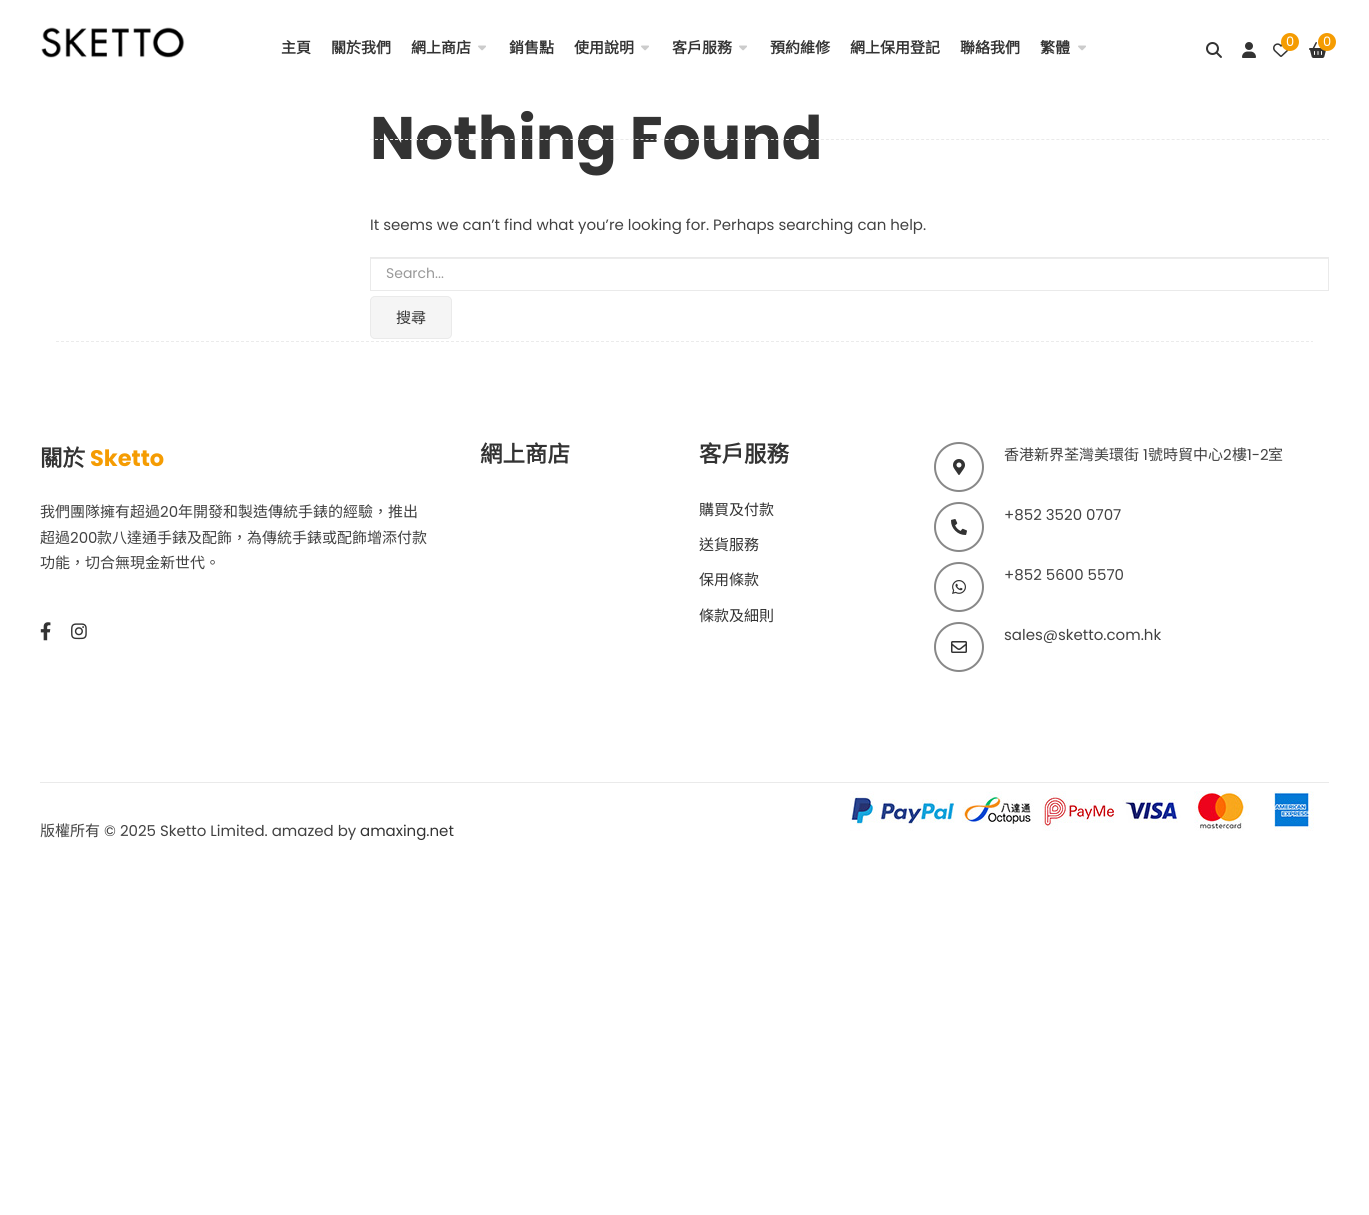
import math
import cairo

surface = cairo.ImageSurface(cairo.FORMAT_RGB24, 1369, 1215)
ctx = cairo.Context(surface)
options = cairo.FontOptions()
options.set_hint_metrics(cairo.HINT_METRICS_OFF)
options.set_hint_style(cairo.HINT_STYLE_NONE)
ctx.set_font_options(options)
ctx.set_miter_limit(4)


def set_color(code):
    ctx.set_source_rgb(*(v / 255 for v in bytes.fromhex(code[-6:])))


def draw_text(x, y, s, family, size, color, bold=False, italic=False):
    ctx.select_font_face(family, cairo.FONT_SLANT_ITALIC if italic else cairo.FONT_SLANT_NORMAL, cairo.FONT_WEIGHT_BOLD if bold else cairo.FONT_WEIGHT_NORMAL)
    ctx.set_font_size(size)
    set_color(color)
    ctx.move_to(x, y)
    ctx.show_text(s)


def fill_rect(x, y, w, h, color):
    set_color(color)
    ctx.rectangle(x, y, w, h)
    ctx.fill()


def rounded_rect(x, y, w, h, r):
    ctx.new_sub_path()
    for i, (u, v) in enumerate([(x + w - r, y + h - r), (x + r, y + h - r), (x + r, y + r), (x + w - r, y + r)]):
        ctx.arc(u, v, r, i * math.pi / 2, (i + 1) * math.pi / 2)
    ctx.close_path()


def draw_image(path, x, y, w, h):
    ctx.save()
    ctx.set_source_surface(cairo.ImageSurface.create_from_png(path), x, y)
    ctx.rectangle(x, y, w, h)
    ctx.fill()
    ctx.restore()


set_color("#ffffff")
ctx.paint()
draw_image("assets/img1.png", 41, 27, 144, 31)
draw_text(281, 53, "主頁", "Noto Sans CJK HK", 15, "#333333", bold=True)
draw_text(331, 53, "關於我們", "Noto Sans CJK HK", 15, "#333333", bold=True)
draw_text(411, 53, "網上商店", "Noto Sans CJK HK", 15, "#333333", bold=True)
draw_image("assets/img2.png", 478, 45, 8, 6)
draw_text(509, 53, "銷售點", "Noto Sans CJK HK", 15, "#333333", bold=True)
draw_text(574, 53, "使用說明", "Noto Sans CJK HK", 15, "#333333", bold=True)
draw_image("assets/img2.png", 641, 45, 8, 6)
draw_text(672, 53, "客戶服務", "Noto Sans CJK HK", 15, "#333333", bold=True)
draw_image("assets/img2.png", 739, 45, 8, 6)
draw_text(770, 53, "預約維修", "Noto Sans CJK HK", 15, "#333333", bold=True)
draw_text(850, 53, "網上保用登記", "Noto Sans CJK HK", 15, "#333333", bold=True)
draw_text(960, 53, "聯絡我們", "Noto Sans CJK HK", 15, "#333333", bold=True)
draw_text(1040, 53, "繁體", "Noto Sans CJK HK", 15, "#333333", bold=True)
draw_image("assets/img2.png", 1078, 45, 8, 6)
draw_image("assets/img3.png", 1273, 43, 16, 14)
set_color("#f59c02")
ctx.arc(1290, 42, 9, 0, 2 * math.pi)
ctx.fill()
draw_text(1286, 46, "0", "Poppins", 13, "#ffffff")
draw_image("assets/img4.png", 1309, 42, 17, 16)
set_color("#f59c02")
ctx.arc(1327, 42, 9, 0, 2 * math.pi)
ctx.fill()
draw_text(1323, 46, "0", "Poppins", 13, "#ffffff")
draw_image("assets/img5.png", 1206, 42, 16, 16)
draw_image("assets/img6.png", 1242, 42, 14, 16)
draw_text(370, 159, "Nothing Found", "Poppins", 60, "#333333", bold=True)
ctx.new_path()
ctx.move_to(370, 139.5)
ctx.line_to(1329, 139.5)
set_color("#eaeaea")
ctx.set_line_width(1)
ctx.set_dash([3, 2.01])
ctx.stroke()
draw_text(370, 230, "It seems we can’t find what you’re looking for. Perhaps searching can help.", "Poppins", 15, "#424242")
fill_rect(371, 258, 957, 1, "#ececec")
ctx.rectangle(370.5, 257.5, 958, 33)
set_color("#eaeaea")
ctx.set_dash([])
ctx.stroke()
draw_text(386, 278, "Search...", "Poppins", 14, "#999999")
set_color("#f5f5f5")
rounded_rect(370.5, 296.5, 81, 42, 4.5)
ctx.fill_preserve()
set_color("#eaeaea")
ctx.stroke()
draw_text(396, 323, "搜尋", "Noto Sans CJK HK", 15, "#333333")
ctx.new_path()
ctx.move_to(56, 341.5)
ctx.line_to(1313, 341.5)
set_color("#ebebeb")
ctx.set_dash([3, 2])
ctx.stroke()
draw_text(40, 466, "關於", "Noto Sans CJK HK", 22.5, "#333333", bold=True)
draw_text(90, 466, "Sketto", "Poppins", 22.5, "#f59c02", bold=True)
draw_text(40, 517, "我們團隊擁有超過", "Noto Sans CJK HK", 15, "#424242")
draw_text(160, 517, "20", "Poppins", 15, "#424242")
draw_text(178, 517, "年開發和製造傳統手錶的經驗，推出", "Noto Sans CJK HK", 15, "#424242")
draw_text(40, 543, "超過", "Noto Sans CJK HK", 15, "#424242")
draw_text(70, 543, "200", "Poppins", 15, "#424242")
draw_text(97, 543, "款八達通手錶及配飾，為傳統手錶或配飾增添付款", "Noto Sans CJK HK", 15, "#424242")
draw_text(40, 568, "功能，切合無現金新世代。", "Noto Sans CJK HK", 15, "#424242")
draw_image("assets/img7.png", 40, 622, 11, 19)
draw_image("assets/img8.png", 71, 623, 16, 17)
draw_text(480, 462, "網上商店", "Noto Sans CJK HK", 22.5, "#333333", bold=True)
draw_text(699, 462, "客戶服務", "Noto Sans CJK HK", 22.5, "#333333", bold=True)
draw_text(699, 515, "購買及付款", "Noto Sans CJK HK", 15, "#333333")
draw_text(699, 550, "送貨服務", "Noto Sans CJK HK", 15, "#333333")
draw_text(699, 585, "保用條款", "Noto Sans CJK HK", 15, "#333333")
draw_text(699, 621, "條款及細則", "Noto Sans CJK HK", 15, "#333333")
ctx.new_path()
ctx.arc(959, 467, 24, 0, 2 * math.pi)
set_color("#888888")
ctx.set_line_width(2)
ctx.set_dash([])
ctx.stroke()
draw_image("assets/img9.png", 953, 459, 12, 16)
draw_text(1004, 460, "香港新界荃灣美環街", "Noto Sans CJK HK", 15, "#424242")
draw_text(1143, 460, "1", "Poppins", 15, "#424242")
draw_text(1148, 460, "號時貿中心", "Noto Sans CJK HK", 15, "#424242")
draw_text(1223, 460, "2", "Poppins", 15, "#424242")
draw_text(1232, 460, "樓", "Noto Sans CJK HK", 15, "#424242")
draw_text(1247, 460, "1-2", "Poppins", 15, "#424242")
draw_text(1268, 460, "室", "Noto Sans CJK HK", 15, "#424242")
ctx.new_path()
ctx.arc(959, 527, 24, 0, 2 * math.pi)
set_color("#888888")
ctx.stroke()
draw_image("assets/img10.png", 951, 519, 16, 16)
draw_text(1004, 520, "+852 3520 0707", "Poppins", 15, "#424242")
ctx.new_path()
ctx.arc(959, 587, 24, 0, 2 * math.pi)
set_color("#888888")
ctx.stroke()
draw_image("assets/img11.png", 952, 580, 14, 14)
draw_text(1004, 580, "+852 5600 5570", "Poppins", 15, "#424242")
ctx.new_path()
ctx.arc(959, 647, 24, 0, 2 * math.pi)
set_color("#888888")
ctx.stroke()
draw_image("assets/img12.png", 951, 641, 16, 12)
draw_text(1004, 640, "sales@sketto.com.hk", "Poppins", 15, "#424242")
fill_rect(40, 782, 1289, 1, "#eaeaea")
draw_text(40, 836, "版權所有", "Noto Sans CJK HK", 15, "#424242")
draw_text(104, 836, "© 2025 Sketto Limited. amazed by", "Poppins", 15, "#424242")
draw_text(360, 836, "amaxing.net", "Poppins", 15, "#333333")
draw_image("assets/img13.png", 850, 791, 464, 40)
surface.write_to_png("output.png")
